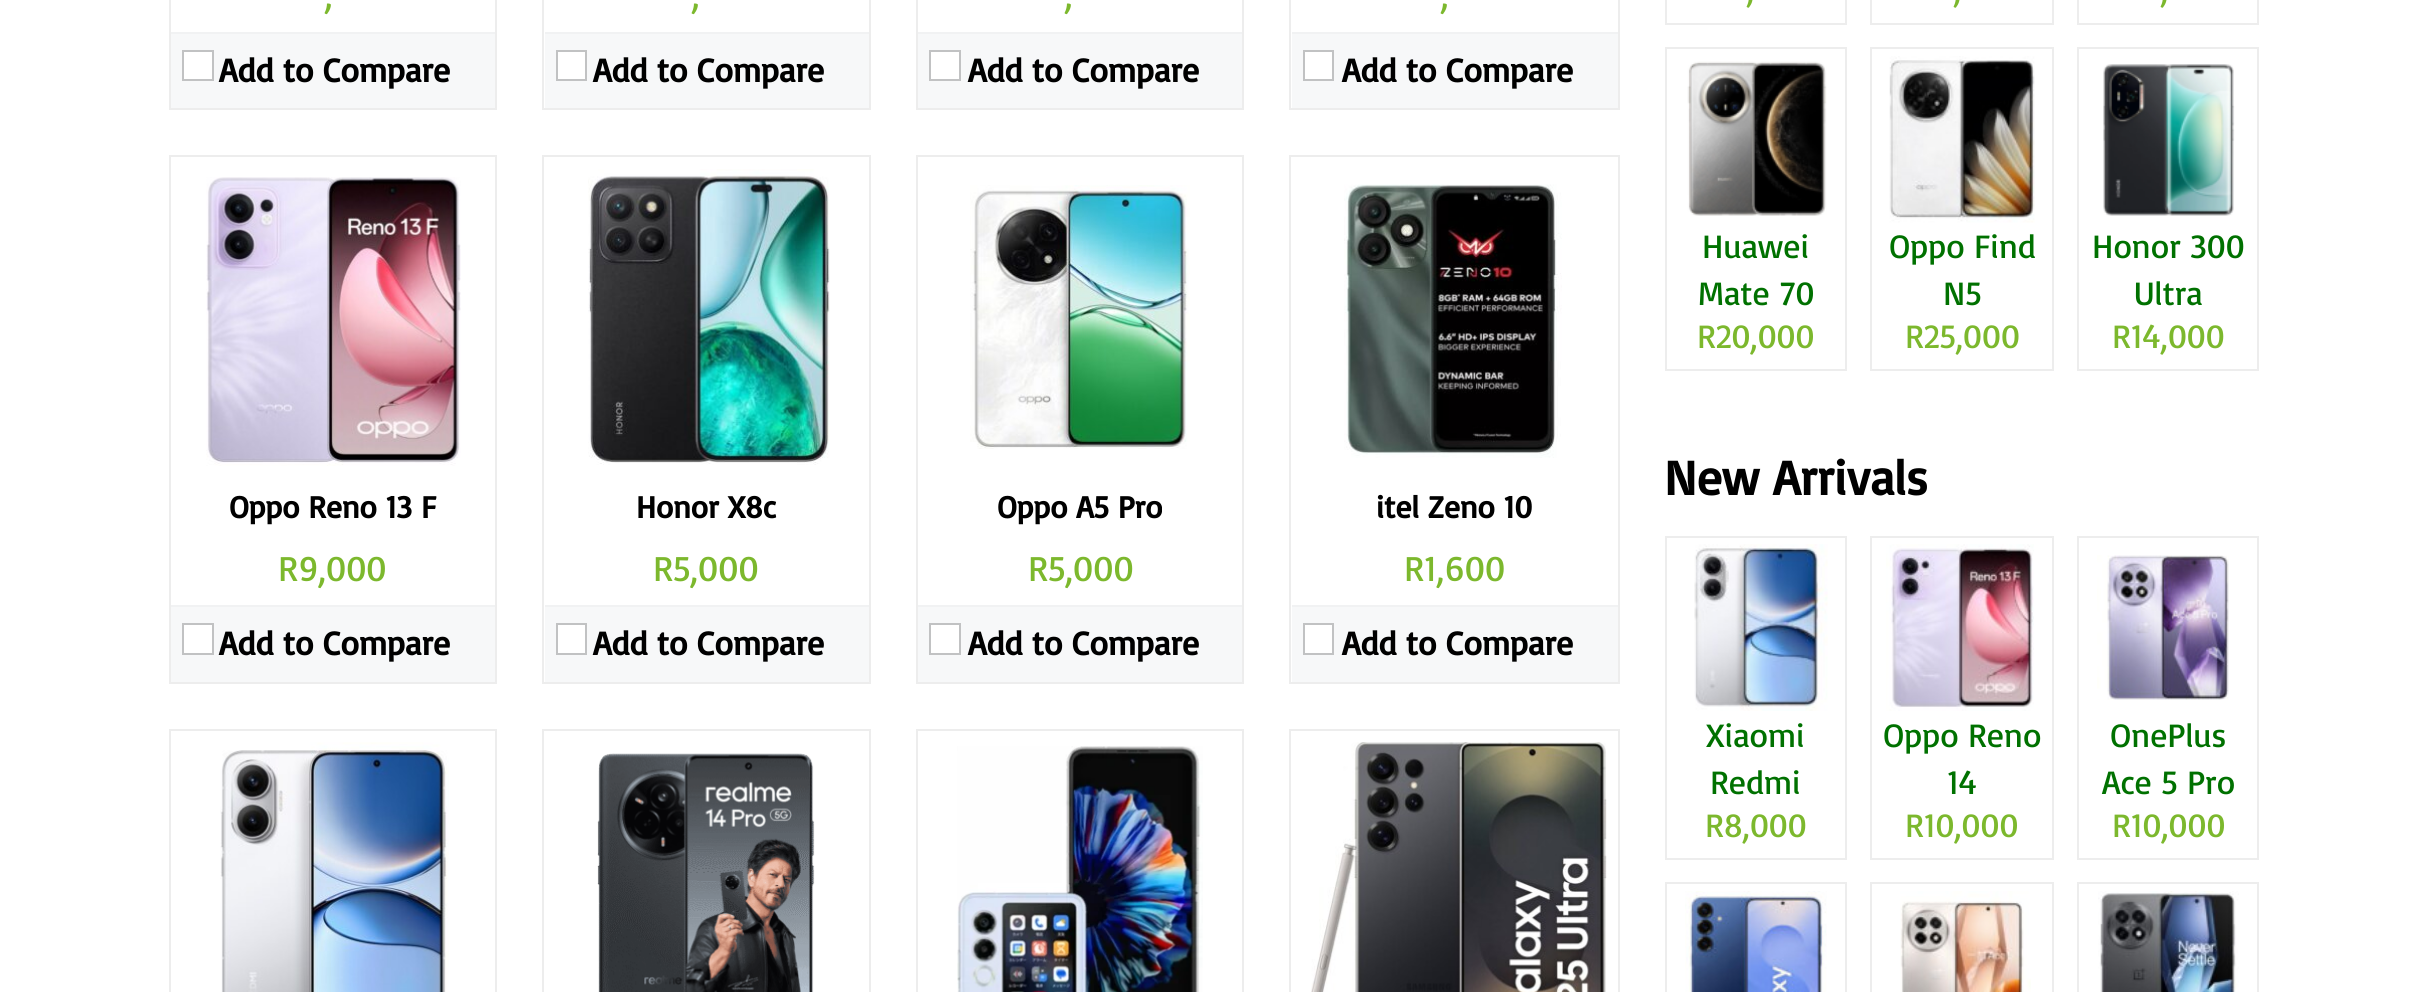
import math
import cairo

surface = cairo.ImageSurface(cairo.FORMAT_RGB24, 2426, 992)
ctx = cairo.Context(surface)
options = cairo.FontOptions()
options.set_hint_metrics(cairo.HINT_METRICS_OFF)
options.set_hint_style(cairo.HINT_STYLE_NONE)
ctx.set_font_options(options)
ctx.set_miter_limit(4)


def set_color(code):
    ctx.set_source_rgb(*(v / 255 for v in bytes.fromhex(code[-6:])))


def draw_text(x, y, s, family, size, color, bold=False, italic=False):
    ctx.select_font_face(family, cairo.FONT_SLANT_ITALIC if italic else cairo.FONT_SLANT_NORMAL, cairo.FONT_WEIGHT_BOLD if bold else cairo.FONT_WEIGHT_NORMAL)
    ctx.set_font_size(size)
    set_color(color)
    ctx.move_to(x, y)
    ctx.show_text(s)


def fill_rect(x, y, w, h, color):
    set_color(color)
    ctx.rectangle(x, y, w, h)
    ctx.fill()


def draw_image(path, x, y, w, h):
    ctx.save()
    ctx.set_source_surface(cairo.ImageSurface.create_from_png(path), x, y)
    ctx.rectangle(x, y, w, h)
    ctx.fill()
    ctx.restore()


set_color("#ffffff")
ctx.paint()
ctx.rectangle(170, -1, 326, 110)
set_color("#ededed")
ctx.stroke()
draw_text(325, 7, ",", "Basic", 36, "#7cb82d")
fill_rect(171, 34, 324, 74, "#f7f8f9")
fill_rect(171, 32, 324, 2, "#f1f2f3")
set_color("#ffffff")
ctx.rectangle(183, 51, 30, 29)
ctx.fill_preserve()
set_color("#c1c2c3")
ctx.stroke()
draw_text(219, 82, "Add to Compare", "Basic", 33.75, "#000000", bold=True)
ctx.rectangle(543, -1, 327, 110)
set_color("#ededed")
ctx.stroke()
draw_text(692, 7, ",", "Basic", 36, "#7cb82d")
fill_rect(545, 34, 324, 74, "#f7f8f9")
fill_rect(545, 32, 324, 2, "#f1f2f3")
set_color("#ffffff")
ctx.rectangle(557, 51, 29, 29)
ctx.fill_preserve()
set_color("#c1c2c3")
ctx.stroke()
draw_text(593, 82, "Add to Compare", "Basic", 33.75, "#000000", bold=True)
ctx.rectangle(917, -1, 326, 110)
set_color("#ededed")
ctx.stroke()
draw_text(1065, 7, ",", "Basic", 36, "#7cb82d")
fill_rect(918, 34, 324, 74, "#f7f8f9")
fill_rect(918, 32, 324, 2, "#f1f2f3")
set_color("#ffffff")
ctx.rectangle(930, 51, 30, 29)
ctx.fill_preserve()
set_color("#c1c2c3")
ctx.stroke()
draw_text(968, 82, "Add to Compare", "Basic", 33.75, "#000000", bold=True)
ctx.rectangle(1290, -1, 329, 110)
set_color("#ededed")
ctx.stroke()
draw_text(1441, 7, ",", "Basic", 36, "#7cb82d")
fill_rect(1292, 34, 326, 74, "#f7f8f9")
fill_rect(1292, 32, 326, 2, "#f1f2f3")
set_color("#ffffff")
ctx.rectangle(1304, 51, 29, 29)
ctx.fill_preserve()
set_color("#c1c2c3")
ctx.stroke()
draw_text(1342, 82, "Add to Compare", "Basic", 33.75, "#000000", bold=True)
ctx.rectangle(170, 156, 326, 527)
set_color("#ededed")
ctx.stroke()
draw_image("assets/img1.png", 206, 177, 255, 289)
draw_text(229, 518, "Oppo Reno 13 F", "Basic", 31.5, "#000000", bold=True)
draw_text(278, 581, "R9,000", "Basic", 36, "#7cb82d")
fill_rect(171, 607, 324, 75, "#f7f8f9")
fill_rect(171, 605, 324, 2, "#f1f2f3")
set_color("#ffffff")
ctx.rectangle(183, 624, 30, 30)
ctx.fill_preserve()
set_color("#c1c2c3")
ctx.stroke()
draw_text(219, 655, "Add to Compare", "Basic", 33.75, "#000000", bold=True)
ctx.rectangle(543, 156, 327, 527)
set_color("#ededed")
ctx.stroke()
draw_image("assets/img2.png", 588, 169, 242, 296)
draw_text(636, 518, "Honor X8c", "Basic", 31.5, "#000000", bold=True)
draw_text(653, 581, "R5,000", "Basic", 36, "#7cb82d")
fill_rect(545, 607, 324, 75, "#f7f8f9")
fill_rect(545, 605, 324, 2, "#f1f2f3")
set_color("#ffffff")
ctx.rectangle(557, 624, 29, 30)
ctx.fill_preserve()
set_color("#c1c2c3")
ctx.stroke()
draw_text(593, 655, "Add to Compare", "Basic", 33.75, "#000000", bold=True)
ctx.rectangle(917, 156, 326, 527)
set_color("#ededed")
ctx.stroke()
draw_image("assets/img3.png", 970, 185, 220, 264)
draw_text(997, 518, "Oppo A5 Pro", "Basic", 31.5, "#000000", bold=True)
draw_text(1028, 581, "R5,000", "Basic", 36, "#7cb82d")
fill_rect(918, 607, 324, 75, "#f7f8f9")
fill_rect(918, 605, 324, 2, "#f1f2f3")
set_color("#ffffff")
ctx.rectangle(930, 624, 30, 30)
ctx.fill_preserve()
set_color("#c1c2c3")
ctx.stroke()
draw_text(968, 655, "Add to Compare", "Basic", 33.75, "#000000", bold=True)
ctx.rectangle(1290, 156, 329, 527)
set_color("#ededed")
ctx.stroke()
draw_image("assets/img4.png", 1344, 184, 218, 274)
draw_text(1376, 518, "itel Zeno 10", "Basic", 31.5, "#000000", bold=True)
draw_text(1404, 581, "R1,600", "Basic", 36, "#7cb82d")
fill_rect(1292, 607, 326, 75, "#f7f8f9")
fill_rect(1292, 605, 326, 2, "#f1f2f3")
set_color("#ffffff")
ctx.rectangle(1304, 624, 29, 30)
ctx.fill_preserve()
set_color("#c1c2c3")
ctx.stroke()
draw_text(1342, 655, "Add to Compare", "Basic", 33.75, "#000000", bold=True)
ctx.rectangle(170, 730, 326, 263)
set_color("#ededed")
ctx.stroke()
draw_image("assets/img5.png", 220, 742, 229, 250)
ctx.rectangle(543, 730, 327, 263)
ctx.stroke()
draw_image("assets/img6.png", 597, 753, 218, 239)
ctx.rectangle(917, 730, 326, 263)
ctx.stroke()
draw_image("assets/img7.png", 957, 746, 246, 246)
ctx.rectangle(1290, 730, 329, 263)
ctx.stroke()
draw_image("assets/img8.png", 1311, 742, 296, 250)
ctx.rectangle(1666, -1, 180, 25)
ctx.stroke()
draw_text(1747, 1, ",", "Basic", 33.75, "#7cb82d")
ctx.rectangle(1871, -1, 182, 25)
set_color("#ededed")
ctx.stroke()
draw_text(1954, 1, ",", "Basic", 33.75, "#7cb82d")
ctx.rectangle(2078, -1, 180, 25)
set_color("#ededed")
ctx.stroke()
draw_text(2161, 1, ",", "Basic", 33.75, "#7cb82d")
ctx.rectangle(1666, 48, 180, 322)
set_color("#ededed")
ctx.stroke()
draw_image("assets/img9.png", 1687, 61, 140, 155)
draw_text(1702, 258, "Huawei", "Basic", 33.75, "#007100")
draw_text(1698, 305, "Mate 70", "Basic", 33.75, "#007100")
draw_text(1697, 348, "R20,000", "Basic", 33.75, "#7cb82d")
ctx.rectangle(1871, 48, 182, 322)
set_color("#ededed")
ctx.stroke()
draw_image("assets/img10.png", 1889, 56, 146, 167)
draw_text(1889, 258, "Oppo Find", "Basic", 33.75, "#007100")
draw_text(1943, 305, "N5", "Basic", 33.75, "#007100")
draw_text(1905, 348, "R25,000", "Basic", 33.75, "#7cb82d")
ctx.rectangle(2078, 48, 180, 322)
set_color("#ededed")
ctx.stroke()
draw_image("assets/img11.png", 2103, 64, 132, 152)
draw_text(2092, 258, "Honor 300", "Basic", 33.75, "#007100")
draw_text(2134, 305, "Ultra", "Basic", 33.75, "#007100")
draw_text(2112, 348, "R14,000", "Basic", 33.75, "#7cb82d")
draw_text(1664, 495, "New Arrivals", "Basic", 49.5, "#000000", bold=True)
ctx.rectangle(1666, 537, 180, 322)
set_color("#ededed")
ctx.stroke()
draw_image("assets/img12.png", 1694, 544, 134, 167)
draw_text(1706, 747, "Xiaomi", "Basic", 33.75, "#007100")
draw_text(1710, 794, "Redmi", "Basic", 33.75, "#007100")
draw_text(1705, 837, "R8,000", "Basic", 33.75, "#7cb82d")
ctx.rectangle(1871, 537, 182, 322)
set_color("#ededed")
ctx.stroke()
draw_image("assets/img13.png", 1886, 544, 148, 167)
draw_text(1883, 747, "Oppo Reno", "Basic", 33.75, "#007100")
draw_text(1947, 794, "14", "Basic", 33.75, "#007100")
draw_text(1905, 837, "R10,000", "Basic", 33.75, "#7cb82d")
ctx.rectangle(2078, 537, 180, 322)
set_color("#ededed")
ctx.stroke()
draw_image("assets/img14.png", 2097, 555, 132, 145)
draw_text(2110, 747, "OnePlus", "Basic", 33.75, "#007100")
draw_text(2102, 794, "Ace 5 Pro", "Basic", 33.75, "#007100")
draw_text(2112, 837, "R10,000", "Basic", 33.75, "#7cb82d")
ctx.rectangle(1666, 883, 180, 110)
set_color("#ededed")
ctx.stroke()
draw_image("assets/img15.png", 1685, 891, 142, 101)
ctx.rectangle(1871, 883, 182, 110)
ctx.stroke()
draw_image("assets/img16.png", 1900, 891, 131, 101)
ctx.rectangle(2078, 883, 180, 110)
ctx.stroke()
draw_image("assets/img17.png", 2098, 891, 141, 101)
surface.write_to_png("output.png")
